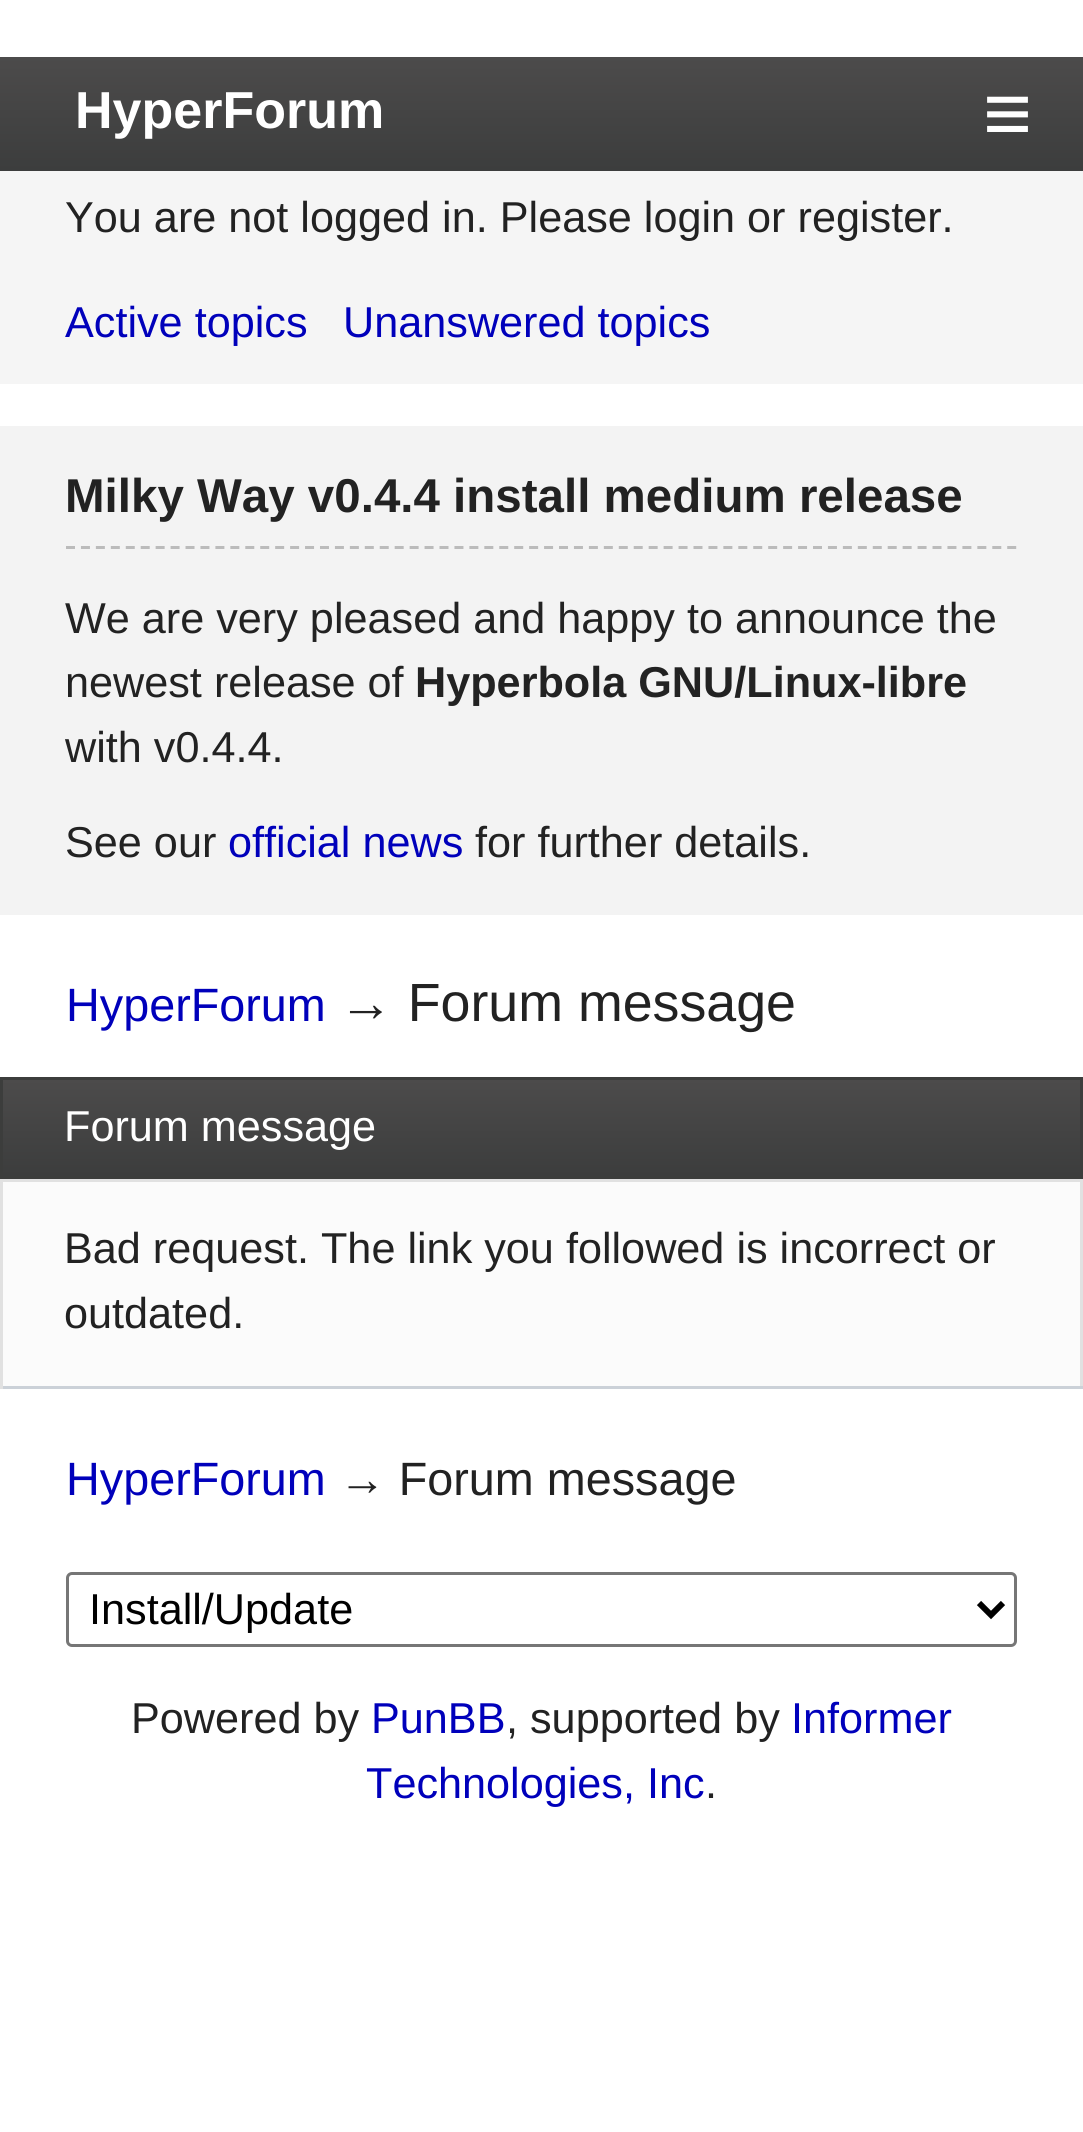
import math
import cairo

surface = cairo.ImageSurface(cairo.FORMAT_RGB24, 1083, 2132)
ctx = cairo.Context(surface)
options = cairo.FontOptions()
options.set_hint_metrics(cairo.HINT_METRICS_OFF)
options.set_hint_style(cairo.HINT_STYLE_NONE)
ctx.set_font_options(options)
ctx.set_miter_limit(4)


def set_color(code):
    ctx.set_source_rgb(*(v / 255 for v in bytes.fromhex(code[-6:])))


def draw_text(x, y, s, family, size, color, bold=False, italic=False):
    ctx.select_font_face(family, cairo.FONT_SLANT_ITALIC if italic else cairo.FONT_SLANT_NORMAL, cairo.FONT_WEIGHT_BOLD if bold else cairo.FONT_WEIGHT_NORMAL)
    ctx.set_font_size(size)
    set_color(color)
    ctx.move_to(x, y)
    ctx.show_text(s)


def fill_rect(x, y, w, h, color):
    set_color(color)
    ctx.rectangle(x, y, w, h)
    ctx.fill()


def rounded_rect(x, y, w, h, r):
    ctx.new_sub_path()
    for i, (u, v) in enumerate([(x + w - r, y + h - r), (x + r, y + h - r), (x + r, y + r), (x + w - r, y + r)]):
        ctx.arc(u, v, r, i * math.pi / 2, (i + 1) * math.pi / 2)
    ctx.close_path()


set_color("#ffffff")
ctx.paint()
gradient = cairo.LinearGradient(542, 171, 542, 57)
gradient.add_color_stop_rgba(0, 0.235, 0.239, 0.239, 1)
gradient.add_color_stop_rgba(1, 0.298, 0.294, 0.294, 1)
ctx.set_source(gradient)
ctx.rectangle(0, 57, 1083, 114)
ctx.fill()
draw_text(75, 128, "HyperForum", "Liberation Sans", 52, "#ffffff", bold=True)
draw_text(983, 142, "≡", "Liberation Sans", 84, "#ffffff")
fill_rect(0, 171, 1083, 213, "#f5f5f5")
draw_text(65, 232, "You are not logged in. Please login or register.", "Liberation Sans", 43.2, "#222222")
draw_text(65, 337, "Active topics", "Liberation Sans", 43.2, "#0000bb")
draw_text(343, 337, "Unanswered topics", "Liberation Sans", 43.2, "#0000bb")
fill_rect(0, 426, 1083, 489, "#f3f3f3")
ctx.new_path()
ctx.move_to(66, 547.5)
ctx.line_to(1017, 547.5)
set_color("#bbbbbb")
ctx.set_line_width(3)
ctx.set_dash([9, 5.94])
ctx.stroke()
draw_text(65, 512, "Milky Way v0.4.4 install medium release", "Liberation Sans", 47.5, "#222222", bold=True)
draw_text(65, 633, "We are very pleased and happy to announce the", "Liberation Sans", 43.2, "#222222")
draw_text(65, 697, "newest release of", "Liberation Sans", 43.2, "#222222")
draw_text(415, 697, "Hyperbola GNU/Linux-libre", "Liberation Sans", 43.2, "#222222", bold=True)
draw_text(65, 762, "with v0.4.4.", "Liberation Sans", 43.2, "#222222")
draw_text(65, 857, "See our", "Liberation Sans", 43.2, "#222222")
draw_text(228, 857, "official news", "Liberation Sans", 43.2, "#0000bb")
draw_text(475, 857, "for further details.", "Liberation Sans", 43.2, "#222222")
draw_text(66, 1021, "HyperForum", "Liberation Sans", 46.75, "#0000bb")
draw_text(339, 1021, "→ Forum message", "Liberation Sans", 53.75, "#222222")
gradient = cairo.LinearGradient(542, 1176, 542, 1080)
gradient.add_color_stop_rgba(0, 0.235, 0.239, 0.239, 1)
gradient.add_color_stop_rgba(1, 0.298, 0.294, 0.294, 1)
ctx.set_source(gradient)
ctx.rectangle(3, 1080, 1077, 96)
ctx.fill()
ctx.rectangle(1.5, 1078.5, 1080, 99)
set_color("#3c3d3c")
ctx.set_dash([])
ctx.stroke()
draw_text(64, 1141, "Forum message", "Liberation Sans", 43.2, "#ffffff")
fill_rect(3, 1182, 1077, 204, "#fbfbfb")
fill_rect(0, 1179, 1083, 3, "#e1e1e1")
fill_rect(1080, 1179, 3, 210, "#e1e1e1")
fill_rect(0, 1386, 1083, 3, "#cbd1d8")
fill_rect(0, 1179, 3, 210, "#e1e1e1")
draw_text(64, 1263, "Bad request. The link you followed is incorrect or", "Liberation Sans", 43.2, "#222222")
draw_text(64, 1328, "outdated.", "Liberation Sans", 43.2, "#222222")
draw_text(66, 1495, "HyperForum", "Liberation Sans", 46.75, "#0000bb")
draw_text(339, 1495, "→ Forum message", "Liberation Sans", 46.75, "#222222")
rounded_rect(67.5, 1573.5, 948, 72, 4.5)
set_color("#767676")
ctx.stroke()
ctx.new_path()
ctx.move_to(979, 1603)
ctx.line_to(991, 1615)
ctx.line_to(1003, 1603)
set_color("#000000")
ctx.set_line_width(6)
ctx.stroke()
draw_text(89, 1624, "Install/Update", "Liberation Sans", 43.2, "#000000")
draw_text(131, 1733, "Powered by", "Liberation Sans", 43.2, "#222222")
draw_text(371, 1733, "PunBB", "Liberation Sans", 43.2, "#0000bb")
draw_text(506, 1733, ", supported by", "Liberation Sans", 43.2, "#222222")
draw_text(791, 1733, "Informer", "Liberation Sans", 43.2, "#0000bb")
draw_text(366, 1798, "Technologies, Inc", "Liberation Sans", 43.2, "#0000bb")
draw_text(705, 1798, ".", "Liberation Sans", 43.2, "#222222")
surface.write_to_png("output.png")
